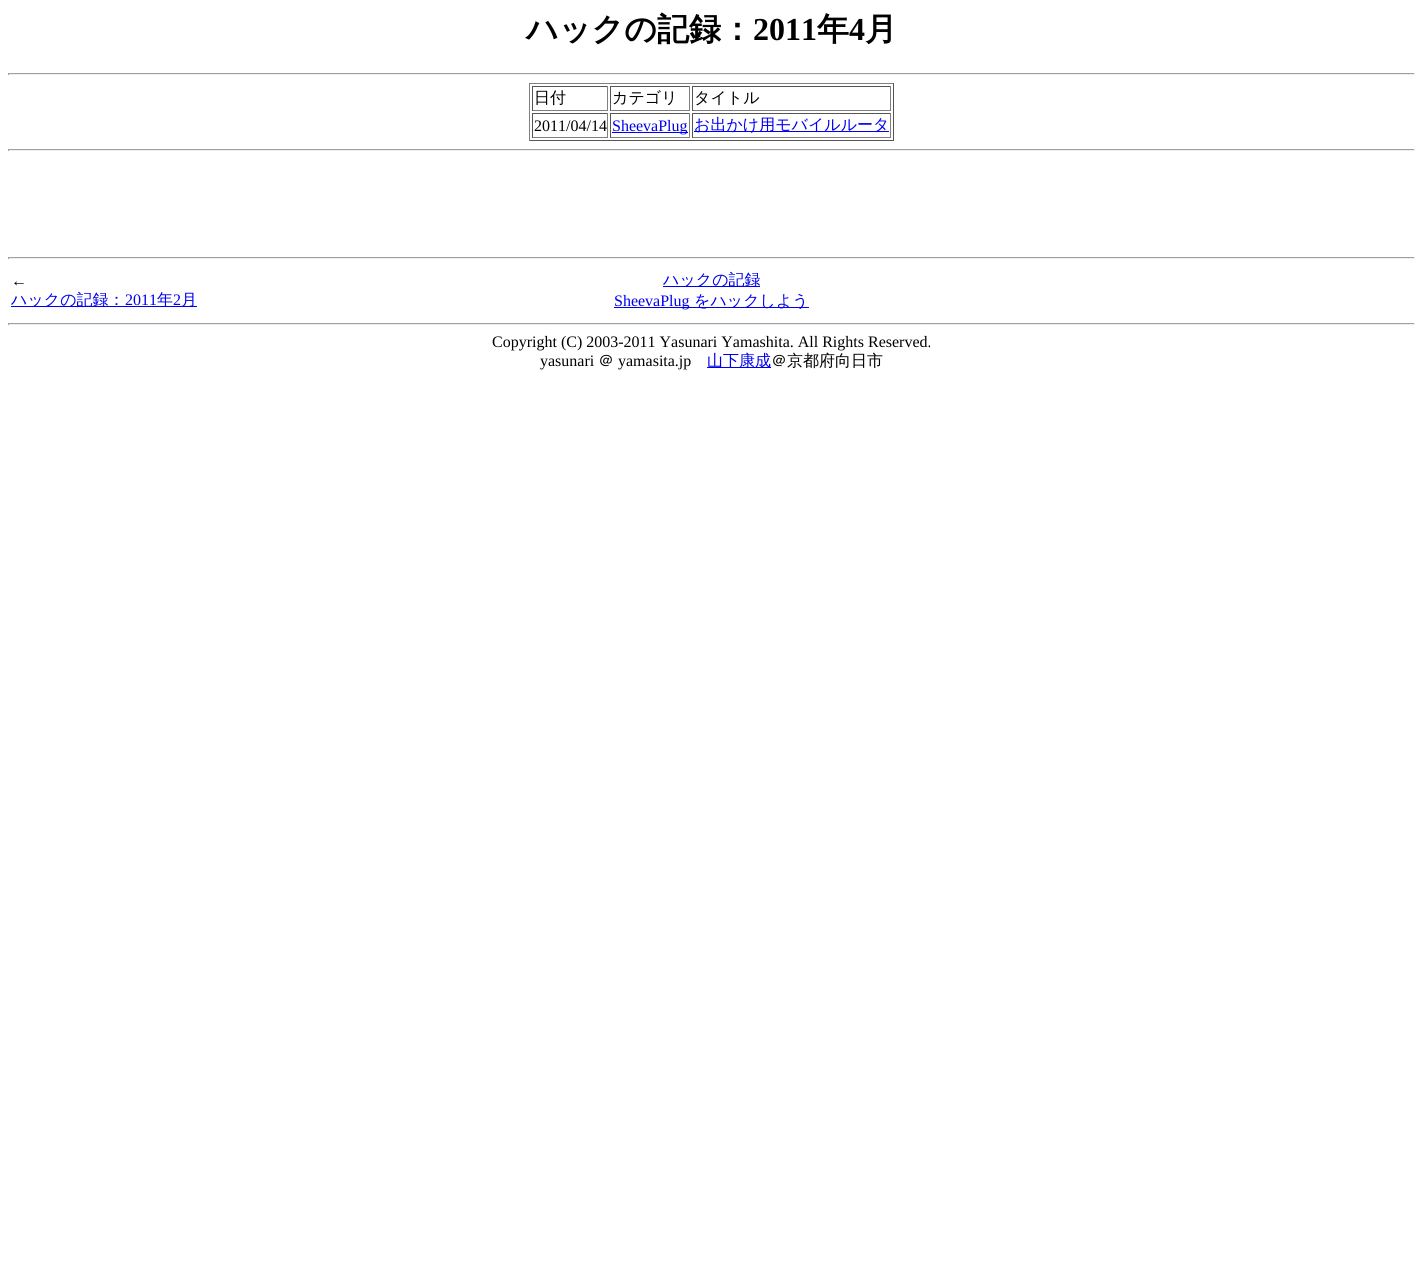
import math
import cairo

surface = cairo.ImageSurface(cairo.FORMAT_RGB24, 1423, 1272)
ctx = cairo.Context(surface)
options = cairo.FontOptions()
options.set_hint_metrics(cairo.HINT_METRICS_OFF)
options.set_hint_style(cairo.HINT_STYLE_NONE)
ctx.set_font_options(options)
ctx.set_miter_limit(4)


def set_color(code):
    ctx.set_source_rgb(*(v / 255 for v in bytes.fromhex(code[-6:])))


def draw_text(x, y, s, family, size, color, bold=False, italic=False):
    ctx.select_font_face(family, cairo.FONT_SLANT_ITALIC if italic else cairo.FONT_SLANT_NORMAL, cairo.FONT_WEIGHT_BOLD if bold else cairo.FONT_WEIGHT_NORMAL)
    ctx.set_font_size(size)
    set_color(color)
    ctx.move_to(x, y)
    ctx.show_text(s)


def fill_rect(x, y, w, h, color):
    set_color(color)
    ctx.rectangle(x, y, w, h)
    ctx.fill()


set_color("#ffffff")
ctx.paint()
draw_text(526, 40, "ハックの記録：", "WenQuanYi Zen Hei", 32, "#000000", bold=True)
draw_text(753, 40, "2011", "Liberation Serif", 32, "#000000", bold=True)
draw_text(817, 40, "年", "WenQuanYi Zen Hei", 32, "#000000", bold=True)
draw_text(849, 40, "4", "Liberation Serif", 32, "#000000", bold=True)
draw_text(865, 40, "月", "WenQuanYi Zen Hei", 32, "#000000", bold=True)
fill_rect(8, 73, 1407, 1, "#9f9f9f")
fill_rect(1414, 73, 1, 2, "#eeeeee")
fill_rect(8, 74, 1407, 1, "#eeeeee")
fill_rect(8, 73, 1, 2, "#9f9f9f")
fill_rect(529, 83, 365, 1, "#808080")
fill_rect(893, 83, 1, 58, "#555555")
fill_rect(529, 140, 365, 1, "#555555")
fill_rect(529, 83, 1, 58, "#808080")
fill_rect(532, 86, 76, 1, "#555555")
fill_rect(607, 86, 1, 25, "#808080")
fill_rect(532, 110, 76, 1, "#808080")
fill_rect(532, 86, 1, 25, "#555555")
draw_text(534, 103, "日付", "WenQuanYi Zen Hei Medium", 16, "#000000")
fill_rect(610, 86, 80, 1, "#555555")
fill_rect(689, 86, 1, 25, "#808080")
fill_rect(610, 110, 80, 1, "#808080")
fill_rect(610, 86, 1, 25, "#555555")
draw_text(612, 103, "カテゴリ", "WenQuanYi Zen Hei Medium", 16, "#000000")
fill_rect(692, 86, 199, 1, "#555555")
fill_rect(890, 86, 1, 25, "#808080")
fill_rect(692, 110, 199, 1, "#808080")
fill_rect(692, 86, 1, 25, "#555555")
draw_text(694, 103, "タイトル", "WenQuanYi Zen Hei Medium", 16, "#000000")
fill_rect(532, 113, 76, 1, "#555555")
fill_rect(607, 113, 1, 25, "#808080")
fill_rect(532, 137, 76, 1, "#808080")
fill_rect(532, 113, 1, 25, "#555555")
draw_text(534, 131, "2011/04/14", "Liberation Serif", 16, "#000000")
fill_rect(610, 113, 80, 1, "#555555")
fill_rect(689, 113, 1, 25, "#808080")
fill_rect(610, 137, 80, 1, "#808080")
fill_rect(610, 113, 1, 25, "#555555")
fill_rect(612, 132, 76, 1, "#0000ee")
draw_text(612, 131, "SheevaPlug", "Liberation Serif", 16, "#0000ee")
fill_rect(692, 113, 199, 1, "#555555")
fill_rect(890, 113, 1, 25, "#808080")
fill_rect(692, 137, 199, 1, "#808080")
fill_rect(692, 113, 1, 25, "#555555")
fill_rect(694, 131, 195, 1, "#0000ee")
draw_text(694, 130, "お出かけ用モバイルルータ", "WenQuanYi Zen Hei Medium", 16, "#0000ee")
fill_rect(8, 149, 1407, 1, "#9f9f9f")
fill_rect(1414, 149, 1, 2, "#eeeeee")
fill_rect(8, 150, 1407, 1, "#eeeeee")
fill_rect(8, 149, 1, 2, "#9f9f9f")
fill_rect(8, 257, 1407, 1, "#9f9f9f")
fill_rect(1414, 257, 1, 2, "#eeeeee")
fill_rect(8, 258, 1407, 1, "#eeeeee")
fill_rect(8, 257, 1, 2, "#9f9f9f")
draw_text(11, 286, "←", "Liberation Serif", 16, "#000000")
fill_rect(11, 306, 186, 1, "#0000ee")
draw_text(11, 305, "ハックの記録：", "WenQuanYi Zen Hei Medium", 16, "#0000ee")
draw_text(125, 305, "2011", "Liberation Serif", 16, "#0000ee")
draw_text(157, 305, "年", "WenQuanYi Zen Hei Medium", 16, "#0000ee")
draw_text(173, 305, "2", "Liberation Serif", 16, "#0000ee")
draw_text(181, 305, "月", "WenQuanYi Zen Hei Medium", 16, "#0000ee")
fill_rect(663, 286, 97, 1, "#0000ee")
draw_text(663, 285, "ハックの記録", "WenQuanYi Zen Hei Medium", 16, "#0000ee")
fill_rect(614, 307, 195, 1, "#0000ee")
draw_text(614, 306, "SheevaPlug", "Liberation Serif", 16, "#0000ee")
draw_text(694, 306, "をハックしよう", "WenQuanYi Zen Hei Medium", 16, "#0000ee")
fill_rect(8, 323, 1407, 1, "#9f9f9f")
fill_rect(1414, 323, 1, 2, "#eeeeee")
fill_rect(8, 324, 1407, 1, "#eeeeee")
fill_rect(8, 323, 1, 2, "#9f9f9f")
draw_text(492, 347, "Copyright (C) 2003-2011 Yasunari Yamashita. All Rights Reserved.", "Liberation Serif", 16, "#000000")
draw_text(540, 366, "yasunari", "Liberation Serif", 16, "#000000")
draw_text(598, 366, "＠", "WenQuanYi Zen Hei Medium", 16, "#000000")
draw_text(618, 366, "yamasita.jp", "Liberation Serif", 16, "#000000")
fill_rect(707, 367, 64, 1, "#0000ee")
draw_text(707, 366, "山下康成", "WenQuanYi Zen Hei Medium", 16, "#0000ee")
draw_text(771, 366, "＠京都府向日市", "WenQuanYi Zen Hei Medium", 16, "#000000")
surface.write_to_png("output.png")
